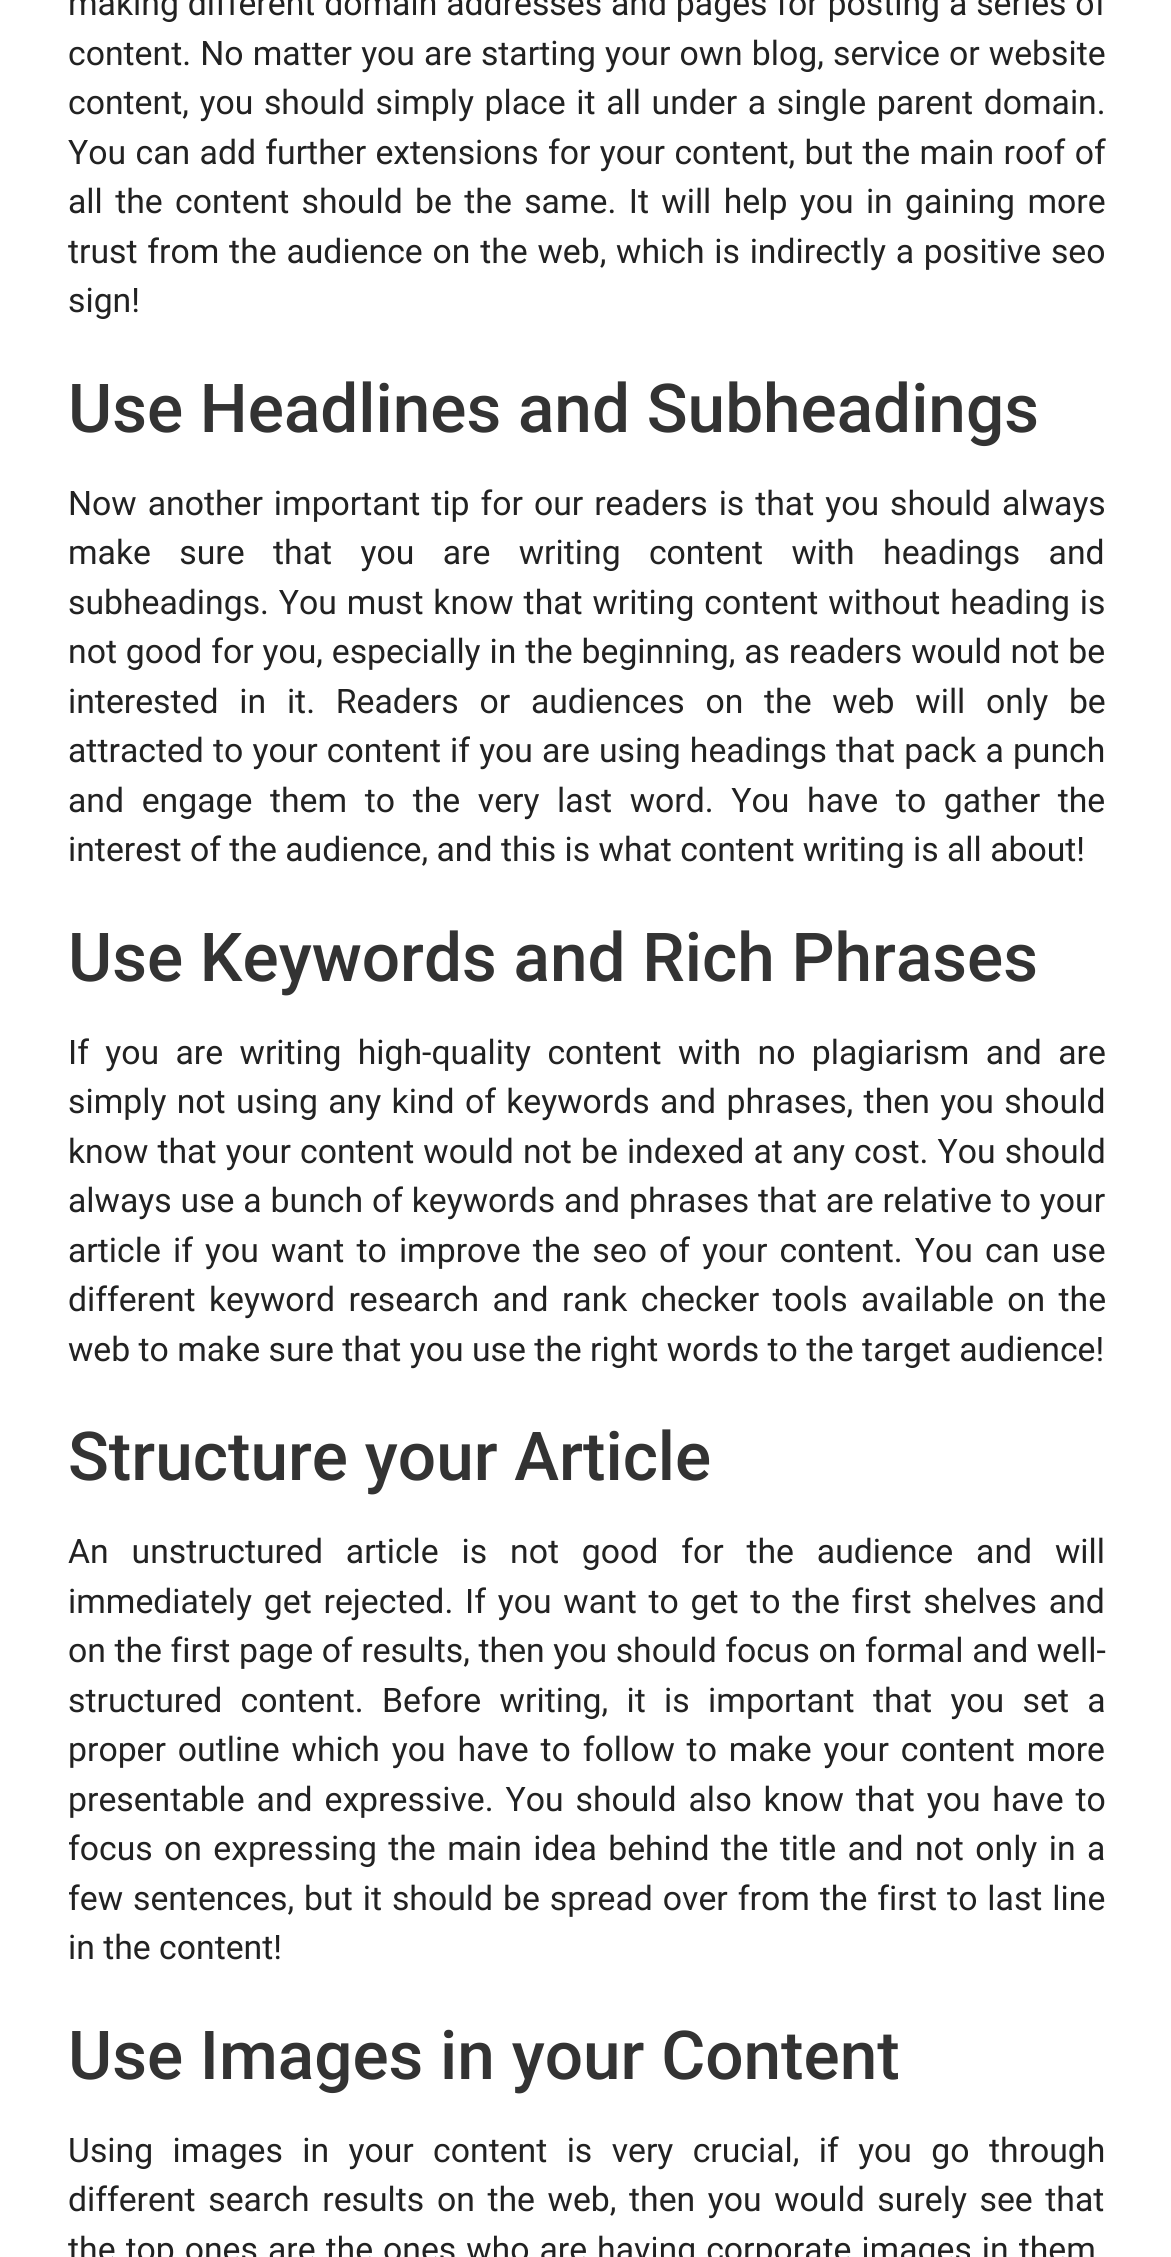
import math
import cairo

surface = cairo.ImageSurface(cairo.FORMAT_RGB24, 1171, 2257)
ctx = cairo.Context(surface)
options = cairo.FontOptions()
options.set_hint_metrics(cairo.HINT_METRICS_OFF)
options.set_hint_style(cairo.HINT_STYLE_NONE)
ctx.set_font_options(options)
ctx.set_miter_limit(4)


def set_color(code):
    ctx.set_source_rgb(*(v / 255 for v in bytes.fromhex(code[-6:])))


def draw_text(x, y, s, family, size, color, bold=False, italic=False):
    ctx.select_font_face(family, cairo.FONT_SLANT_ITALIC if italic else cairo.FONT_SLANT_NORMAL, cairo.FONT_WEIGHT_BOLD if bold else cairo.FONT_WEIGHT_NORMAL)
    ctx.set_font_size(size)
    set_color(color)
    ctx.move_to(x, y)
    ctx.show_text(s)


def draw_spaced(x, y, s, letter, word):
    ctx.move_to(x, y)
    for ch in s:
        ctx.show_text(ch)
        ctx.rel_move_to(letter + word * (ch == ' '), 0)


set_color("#ffffff")
ctx.paint()
ctx.select_font_face("Roboto")
ctx.set_font_size(33.75)
set_color("#222222")
draw_spaced(68, 15, "making different domain addresses and pages for posting a series of", 0, 0.5)
draw_spaced(68, 65, "content. No matter you are starting your own blog, service or website", 0, 0.75)
draw_spaced(68, 114, "content, you should simply place it all under a single parent domain.", 0, 2.25)
draw_spaced(68, 164, "You can add further extensions for your content, but the main roof of", 0, 1)
draw_spaced(68, 213, "all the content should be the same. It will help you in gaining more", 0, 4)
draw_spaced(68, 263, "trust from the audience on the web, which is indirectly a positive seo", 0, 1.4)
draw_text(68, 312, "sign!", "Roboto", 33.75, "#222222")
draw_text(68, 432, "Use Headlines and Subheadings", "Roboto Medium", 67.5, "#333333")
ctx.select_font_face("Roboto")
ctx.set_font_size(33.75)
set_color("#222222")
draw_spaced(68, 515, "Now another important tip for our readers is that you should always", 0, 2.6)
draw_spaced(68, 564, "make sure that you are writing content with headings and", 0, 20)
draw_spaced(68, 614, "subheadings. You must know that writing content without heading is", 0, 1.5)
draw_spaced(68, 663, "not good for you, especially in the beginning, as readers would not be", 0, 0.5)
draw_spaced(68, 713, "interested in it. Readers or audiences on the web will only be", 0, 12.4)
draw_spaced(68, 762, "attracted to your content if you are using headings that pack a punch", 0, 0.75)
draw_spaced(68, 812, "and engage them to the very last word. You have to gather the", 0, 9.25)
draw_text(68, 861, "interest of the audience, and this is what content writing is all about!", "Roboto", 33.75, "#222222")
draw_text(68, 981, "Use Keywords and Rich Phrases", "Roboto Medium", 67.5, "#333333")
ctx.select_font_face("Roboto")
ctx.set_font_size(33.75)
set_color("#222222")
draw_spaced(68, 1064, "If you are writing high-quality content with no plagiarism and are", 0, 8)
draw_spaced(68, 1113, "simply not using any kind of keywords and phrases, then you should", 0, 2)
draw_spaced(68, 1163, "know that your content would not be indexed at any cost. You should", 0, 0.75)
draw_spaced(68, 1212, "always use a bunch of keywords and phrases that are relative to your", 0, 0.5)
draw_spaced(68, 1262, "article if you want to improve the seo of your content. You can use", 0, 3.75)
draw_spaced(68, 1311, "different keyword research and rank checker tools available on the", 0, 5)
draw_text(68, 1361, "web to make sure that you use the right words to the target audience!", "Roboto", 33.75, "#222222")
draw_text(68, 1480, "Structure your Article", "Roboto Medium", 67.5, "#333333")
ctx.select_font_face("Roboto")
ctx.set_font_size(33.75)
set_color("#222222")
draw_spaced(68, 1563, "An unstructured article is not good for the audience and will", 0, 14.5)
draw_spaced(68, 1613, "immediately get rejected. If you want to get to the first shelves and", 0, 3.4)
draw_spaced(68, 1662, "on the first page of results, then you should focus on formal and well-", 0, 0.2)
draw_spaced(68, 1712, "structured content. Before writing, it is important that you set a", 0, 10)
draw_spaced(68, 1761, "proper outline which you have to follow to make your content more", 0, 3.5)
draw_spaced(68, 1811, "presentable and expressive. You should also know that you have to", 0, 3.5)
draw_spaced(68, 1860, "focus on expressing the main idea behind the title and not only in a", 0, 3)
draw_spaced(68, 1910, "few sentences, but it should be spread over from the first to last line", 0, 1.6)
draw_text(68, 1959, "in the content!", "Roboto", 33.75, "#222222")
draw_text(68, 2079, "Use Images in your Content", "Roboto Medium", 67.5, "#333333")
ctx.select_font_face("Roboto")
ctx.set_font_size(33.75)
set_color("#222222")
draw_spaced(68, 2162, "Using images in your content is very crucial, if you go through", 0, 11)
draw_spaced(68, 2211, "different search results on the web, then you would surely see that", 0, 4.25)
draw_spaced(68, 2261, "the top ones are the ones who are having corporate images in them", 0, 1.6)
surface.write_to_png("output.png")
